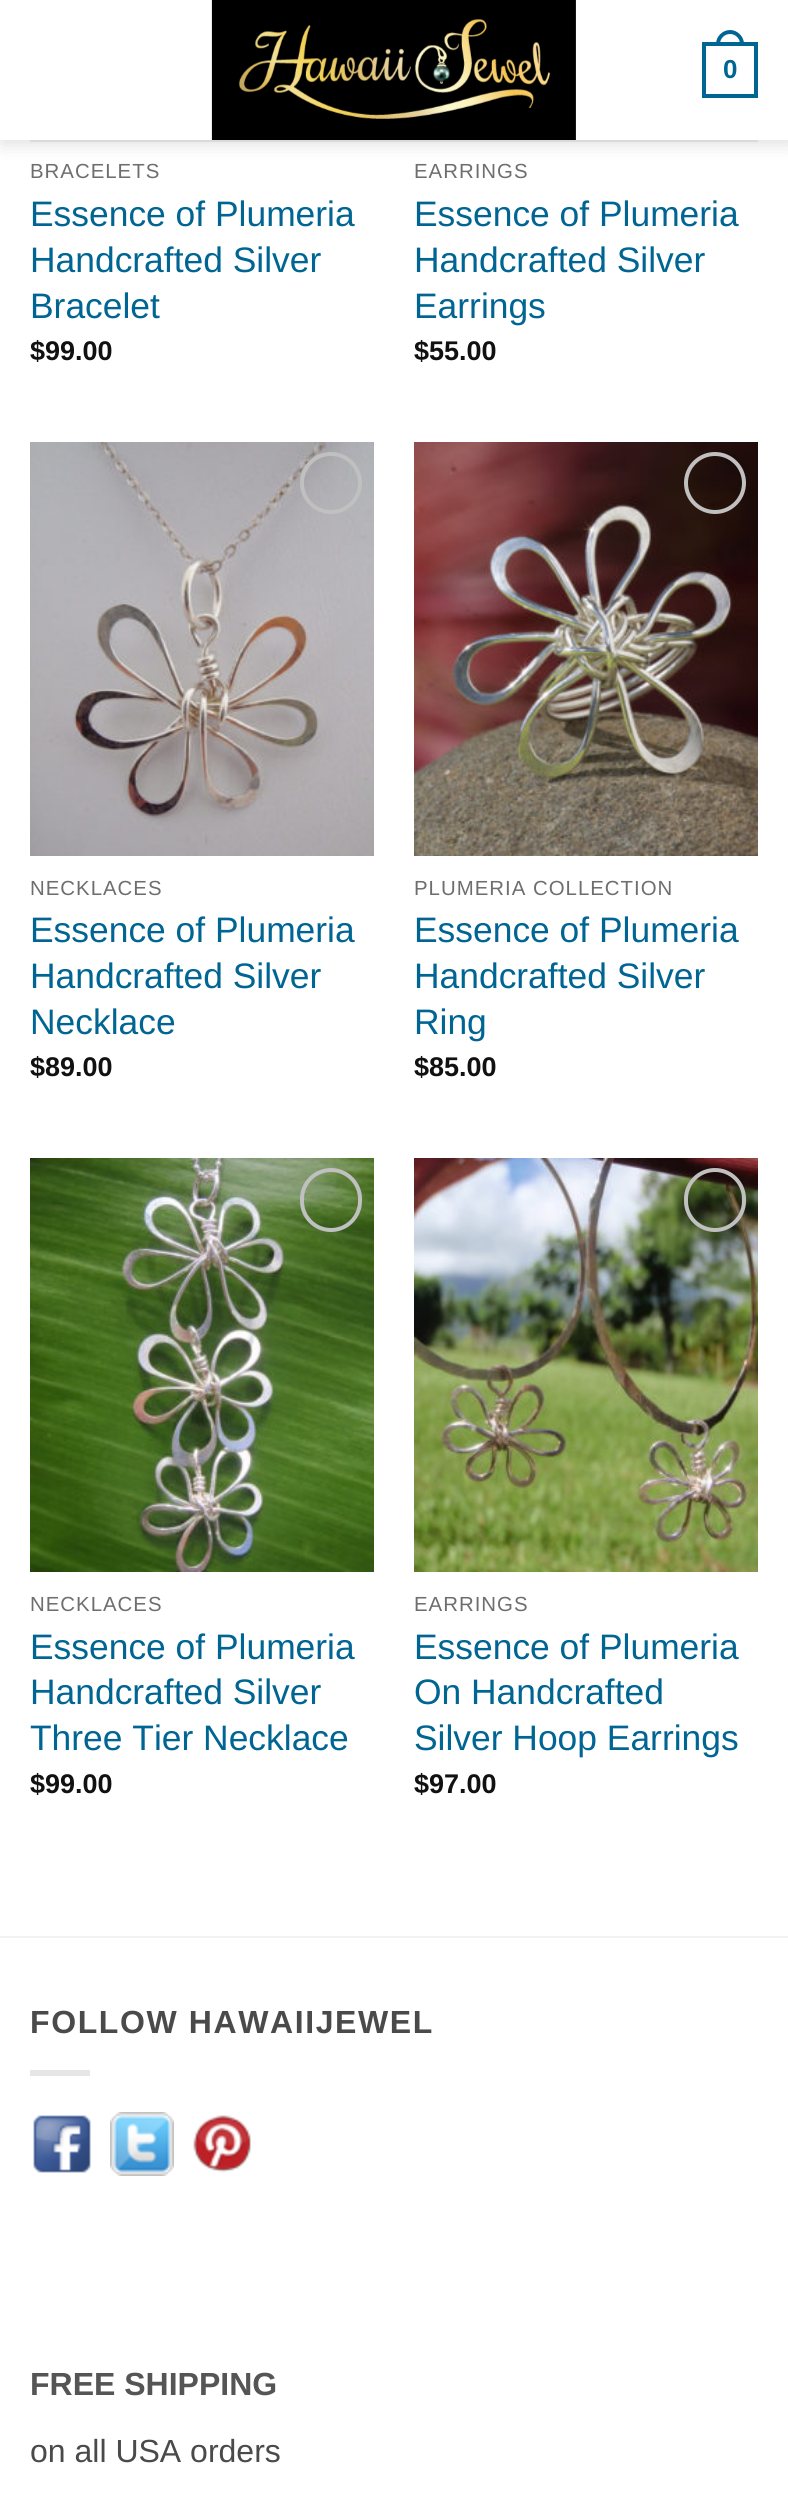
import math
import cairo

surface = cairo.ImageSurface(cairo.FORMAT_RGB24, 788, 2503)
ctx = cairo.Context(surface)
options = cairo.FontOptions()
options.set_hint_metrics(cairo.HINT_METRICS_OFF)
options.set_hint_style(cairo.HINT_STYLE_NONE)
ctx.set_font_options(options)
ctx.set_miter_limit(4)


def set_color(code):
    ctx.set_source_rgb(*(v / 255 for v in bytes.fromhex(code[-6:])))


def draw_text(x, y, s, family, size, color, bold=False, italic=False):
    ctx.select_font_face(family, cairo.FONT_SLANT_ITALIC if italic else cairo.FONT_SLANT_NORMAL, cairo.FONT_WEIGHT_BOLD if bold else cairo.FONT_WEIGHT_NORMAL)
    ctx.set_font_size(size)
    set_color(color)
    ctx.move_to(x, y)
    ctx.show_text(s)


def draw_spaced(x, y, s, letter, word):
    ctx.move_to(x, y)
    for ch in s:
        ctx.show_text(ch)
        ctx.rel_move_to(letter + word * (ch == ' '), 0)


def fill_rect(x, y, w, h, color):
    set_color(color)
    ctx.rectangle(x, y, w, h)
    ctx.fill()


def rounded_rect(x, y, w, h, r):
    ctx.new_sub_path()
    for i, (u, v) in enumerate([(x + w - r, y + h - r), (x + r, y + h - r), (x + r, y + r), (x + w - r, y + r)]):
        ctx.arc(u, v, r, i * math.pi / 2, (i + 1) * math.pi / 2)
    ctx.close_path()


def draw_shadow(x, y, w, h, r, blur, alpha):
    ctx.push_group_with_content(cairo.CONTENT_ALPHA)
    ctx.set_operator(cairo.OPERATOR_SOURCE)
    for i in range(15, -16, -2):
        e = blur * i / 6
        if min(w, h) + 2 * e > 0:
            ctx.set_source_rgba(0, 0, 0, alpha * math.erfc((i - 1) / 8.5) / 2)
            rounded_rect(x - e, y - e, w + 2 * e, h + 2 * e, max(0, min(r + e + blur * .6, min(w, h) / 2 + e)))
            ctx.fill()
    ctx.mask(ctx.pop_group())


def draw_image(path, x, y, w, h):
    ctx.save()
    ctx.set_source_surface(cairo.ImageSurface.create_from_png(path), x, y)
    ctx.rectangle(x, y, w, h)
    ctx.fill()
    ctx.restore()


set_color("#ffffff")
ctx.paint()
set_color("#000000")
draw_shadow(2, 2, 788, 140, 0, 10, 0.15)
fill_rect(0, 0, 788, 140, "#ffffff")
draw_image("assets/img1.png", 211, 0, 365, 140)
ctx.rectangle(704, 44, 52, 52)
set_color("#006593")
ctx.set_line_width(4)
ctx.stroke()
ctx.set_fill_rule(cairo.FILL_RULE_EVEN_ODD)
ctx.new_path()
ctx.move_to(730, 30)
ctx.curve_to(737.5, 30, 744, 36.5, 744, 44)
ctx.line_to(744, 46)
ctx.line_to(716, 46)
ctx.line_to(716, 44)
ctx.curve_to(716, 36.5, 722.5, 30, 730, 30)
ctx.close_path()
ctx.move_to(730, 34)
ctx.curve_to(735.5, 34, 740, 38.5, 740, 44)
ctx.line_to(740, 46)
ctx.line_to(720, 46)
ctx.line_to(720, 44)
ctx.curve_to(720, 38.5, 724.5, 34, 730, 34)
ctx.close_path()
ctx.fill()
draw_text(723, 78, "0", "Liberation Sans", 26, "#006593", bold=True)
fill_rect(30, 140, 728, 2, "#dadada")
ctx.select_font_face("Liberation Sans")
ctx.set_font_size(20.4)
set_color("#6e6e6e")
draw_spaced(30, 178, "BRACELETS", 1, 0)
draw_text(30, 226, "Essence of Plumeria", "Liberation Sans", 35.4, "#006593")
draw_text(30, 272, "Handcrafted Silver", "Liberation Sans", 35.4, "#006593")
draw_text(30, 318, "Bracelet", "Liberation Sans", 35.4, "#006593")
draw_text(30, 360, "$99.00", "Liberation Sans", 27, "#111111", bold=True)
ctx.select_font_face("Liberation Sans")
ctx.set_font_size(20.4)
set_color("#6e6e6e")
draw_spaced(414, 178, "EARRINGS", 1, 0)
draw_text(414, 226, "Essence of Plumeria", "Liberation Sans", 35.4, "#006593")
draw_text(414, 272, "Handcrafted Silver", "Liberation Sans", 35.4, "#006593")
draw_text(414, 318, "Earrings", "Liberation Sans", 35.4, "#006593")
draw_text(414, 360, "$55.00", "Liberation Sans", 27, "#111111", bold=True)
draw_image("assets/img2.png", 30, 442, 344, 414)
ctx.arc(331, 483, 29, 0, 2 * math.pi)
set_color("#c0c0c0")
ctx.stroke()
ctx.select_font_face("Liberation Sans")
ctx.set_font_size(20.4)
set_color("#6e6e6e")
draw_spaced(30, 895, "NECKLACES", 1, 0)
draw_text(30, 942, "Essence of Plumeria", "Liberation Sans", 35.4, "#006593")
draw_text(30, 988, "Handcrafted Silver", "Liberation Sans", 35.4, "#006593")
draw_text(30, 1034, "Necklace", "Liberation Sans", 35.4, "#006593")
draw_text(30, 1076, "$89.00", "Liberation Sans", 27, "#111111", bold=True)
draw_image("assets/img3.png", 414, 442, 344, 414)
ctx.arc(715, 483, 29, 0, 2 * math.pi)
set_color("#c0c0c0")
ctx.stroke()
ctx.select_font_face("Liberation Sans")
ctx.set_font_size(20.4)
set_color("#6e6e6e")
draw_spaced(414, 895, "PLUMERIA COLLECTION", 1, 0)
draw_text(414, 942, "Essence of Plumeria", "Liberation Sans", 35.4, "#006593")
draw_text(414, 988, "Handcrafted Silver", "Liberation Sans", 35.4, "#006593")
draw_text(414, 1034, "Ring", "Liberation Sans", 35.4, "#006593")
draw_text(414, 1076, "$85.00", "Liberation Sans", 27, "#111111", bold=True)
draw_image("assets/img4.png", 30, 1158, 344, 414)
rounded_rect(302, 1170, 58, 60, 29)
set_color("#c0c0c0")
ctx.stroke()
ctx.select_font_face("Liberation Sans")
ctx.set_font_size(20.4)
set_color("#6e6e6e")
draw_spaced(30, 1611, "NECKLACES", 1, 0)
draw_text(30, 1659, "Essence of Plumeria", "Liberation Sans", 35.4, "#006593")
draw_text(30, 1704, "Handcrafted Silver", "Liberation Sans", 35.4, "#006593")
draw_text(30, 1750, "Three Tier Necklace", "Liberation Sans", 35.4, "#006593")
draw_text(30, 1793, "$99.00", "Liberation Sans", 27, "#111111", bold=True)
draw_image("assets/img5.png", 414, 1158, 344, 414)
rounded_rect(686, 1170, 58, 60, 29)
set_color("#c0c0c0")
ctx.stroke()
ctx.select_font_face("Liberation Sans")
ctx.set_font_size(20.4)
set_color("#6e6e6e")
draw_spaced(414, 1611, "EARRINGS", 1, 0)
draw_text(414, 1659, "Essence of Plumeria", "Liberation Sans", 35.4, "#006593")
draw_text(414, 1704, "On Handcrafted", "Liberation Sans", 35.4, "#006593")
draw_text(414, 1750, "Silver Hoop Earrings", "Liberation Sans", 35.4, "#006593")
draw_text(414, 1793, "$97.00", "Liberation Sans", 27, "#111111", bold=True)
fill_rect(0, 1936, 788, 2, "#f2f2f2")
ctx.set_font_size(32)
set_color("#4a4a4a")
draw_spaced(30, 2033, "FOLLOW HAWAIIJEWEL", 1.6, 0)
fill_rect(30, 2070, 60, 6, "#e6e6e6")
draw_image("assets/img6.png", 33, 2115, 58, 58)
draw_image("assets/img7.png", 110, 2112, 64, 64)
draw_image("assets/img8.png", 193, 2115, 58, 58)
draw_text(30, 2395, "FREE SHIPPING", "Liberation Sans", 32, "#555555", bold=True)
draw_text(30, 2462, "on all USA orders", "Liberation Sans", 32, "#4a4a4a")
surface.write_to_png("output.png")
